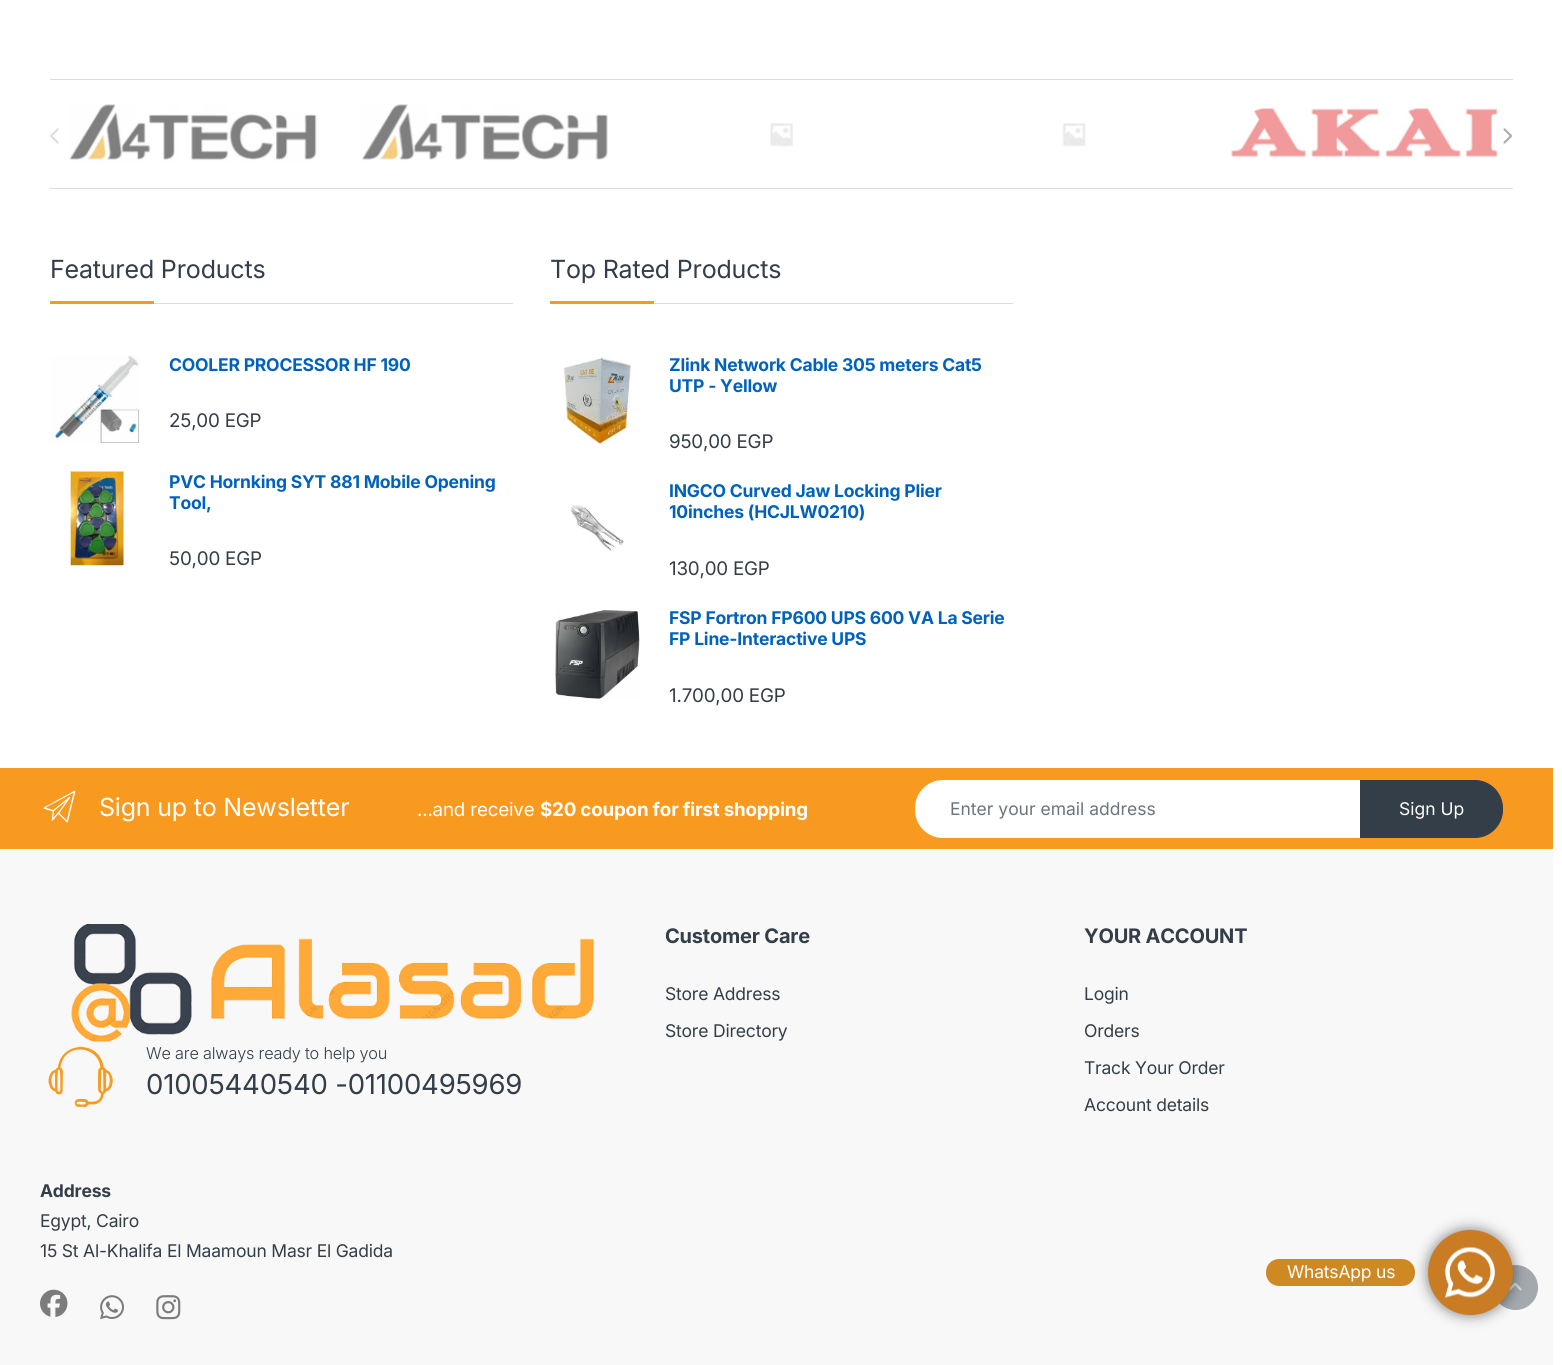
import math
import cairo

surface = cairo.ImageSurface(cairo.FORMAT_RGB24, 1562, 1365)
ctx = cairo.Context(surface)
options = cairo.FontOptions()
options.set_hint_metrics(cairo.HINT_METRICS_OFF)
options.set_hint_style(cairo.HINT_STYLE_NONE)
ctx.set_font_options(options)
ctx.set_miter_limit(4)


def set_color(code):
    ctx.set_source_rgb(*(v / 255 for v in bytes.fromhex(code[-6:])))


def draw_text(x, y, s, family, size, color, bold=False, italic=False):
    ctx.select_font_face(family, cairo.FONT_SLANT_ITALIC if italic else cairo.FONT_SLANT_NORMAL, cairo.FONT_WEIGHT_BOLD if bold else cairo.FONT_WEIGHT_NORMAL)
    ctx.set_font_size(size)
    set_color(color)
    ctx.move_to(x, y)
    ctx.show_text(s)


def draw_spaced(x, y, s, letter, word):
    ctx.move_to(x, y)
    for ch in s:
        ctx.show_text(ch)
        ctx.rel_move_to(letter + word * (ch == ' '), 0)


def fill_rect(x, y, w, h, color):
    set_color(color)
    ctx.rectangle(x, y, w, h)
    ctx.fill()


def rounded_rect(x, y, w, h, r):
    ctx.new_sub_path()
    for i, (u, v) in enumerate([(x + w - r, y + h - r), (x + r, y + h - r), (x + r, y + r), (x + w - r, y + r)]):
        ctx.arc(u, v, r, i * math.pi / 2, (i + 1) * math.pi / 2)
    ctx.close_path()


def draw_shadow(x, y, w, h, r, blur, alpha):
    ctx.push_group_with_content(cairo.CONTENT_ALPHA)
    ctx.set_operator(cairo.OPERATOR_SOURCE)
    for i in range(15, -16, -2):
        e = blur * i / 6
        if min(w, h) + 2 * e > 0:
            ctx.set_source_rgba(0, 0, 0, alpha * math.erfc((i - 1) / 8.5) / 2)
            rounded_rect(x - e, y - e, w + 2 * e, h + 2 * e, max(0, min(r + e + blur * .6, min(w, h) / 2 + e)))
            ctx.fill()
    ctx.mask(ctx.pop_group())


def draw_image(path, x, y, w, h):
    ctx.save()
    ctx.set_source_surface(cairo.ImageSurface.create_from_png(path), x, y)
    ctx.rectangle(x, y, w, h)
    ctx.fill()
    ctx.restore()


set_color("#ffffff")
ctx.paint()
fill_rect(50, 79, 1463, 1, "#dddddd")
fill_rect(50, 188, 1463, 1, "#dddddd")
draw_image("assets/img1.png", 69, 104, 248, 58)
draw_image("assets/img2.png", 361, 104, 247, 57)
draw_image("assets/img3.png", 770, 123, 23, 24)
draw_image("assets/img4.png", 1062, 123, 24, 24)
draw_image("assets/img5.png", 1230, 108, 268, 50)
draw_image("assets/img6.png", 50, 128, 9, 16)
draw_image("assets/img7.png", 1503, 128, 10, 16)
fill_rect(154, 303, 359, 1, "#dddddd")
ctx.select_font_face("Inter")
ctx.set_font_size(25)
set_color("#333e48")
draw_spaced(50, 278, "Featured Products", -0.2, 0)
fill_rect(50, 301, 104, 3, "#f89a20")
draw_image("assets/img8.png", 50, 355, 90, 88)
ctx.select_font_face("Inter", cairo.FONT_SLANT_NORMAL, cairo.FONT_WEIGHT_BOLD)
ctx.set_font_size(17.5)
set_color("#0062bd")
draw_spaced(169, 371, "COOLER PROCESSOR HF 190", -0.2, 0)
ctx.select_font_face("Inter")
ctx.set_font_size(18.75)
set_color("#333e48")
draw_spaced(169, 427, "25,00 EGP", -0.2, 0)
draw_image("assets/img9.png", 68, 471, 58, 95)
ctx.select_font_face("Inter", cairo.FONT_SLANT_NORMAL, cairo.FONT_WEIGHT_BOLD)
ctx.set_font_size(17.5)
set_color("#0062bd")
draw_spaced(169, 488, "PVC Hornking SYT 881 Mobile Opening", -0.2, 0)
draw_spaced(169, 509, "Tool,", -0.2, 0)
ctx.select_font_face("Inter")
ctx.set_font_size(18.75)
set_color("#333e48")
draw_spaced(169, 565, "50,00 EGP", -0.2, 0)
fill_rect(654, 303, 359, 1, "#dddddd")
ctx.set_font_size(25)
set_color("#333e48")
draw_spaced(550, 278, "Top Rated Products", -0.2, 0)
fill_rect(550, 301, 104, 3, "#f89a20")
draw_image("assets/img10.png", 563, 357, 70, 87)
ctx.select_font_face("Inter", cairo.FONT_SLANT_NORMAL, cairo.FONT_WEIGHT_BOLD)
ctx.set_font_size(17.5)
set_color("#0062bd")
draw_spaced(669, 371, "Zlink Network Cable 305 meters Cat5", -0.2, 0)
draw_spaced(669, 392, "UTP - Yellow", -0.2, 0)
ctx.select_font_face("Inter")
ctx.set_font_size(18.75)
set_color("#333e48")
draw_spaced(669, 448, "950,00 EGP", -0.2, 0)
draw_image("assets/img11.png", 570, 505, 54, 46)
ctx.select_font_face("Inter", cairo.FONT_SLANT_NORMAL, cairo.FONT_WEIGHT_BOLD)
ctx.set_font_size(17.5)
set_color("#0062bd")
draw_spaced(669, 497, "INGCO Curved Jaw Locking Plier", -0.2, 0)
draw_spaced(669, 518, "10inches (HCJLW0210)", -0.2, 0)
ctx.select_font_face("Inter")
ctx.set_font_size(18.75)
set_color("#333e48")
draw_spaced(669, 575, "130,00 EGP", -0.2, 0)
draw_image("assets/img12.png", 555, 610, 85, 89)
ctx.select_font_face("Inter", cairo.FONT_SLANT_NORMAL, cairo.FONT_WEIGHT_BOLD)
ctx.set_font_size(17.5)
set_color("#0062bd")
draw_spaced(669, 624, "FSP Fortron FP600 UPS 600 VA La Serie", -0.2, 0)
draw_spaced(669, 645, "FP Line-Interactive UPS", -0.2, 0)
ctx.select_font_face("Inter")
ctx.set_font_size(18.75)
set_color("#333e48")
draw_spaced(669, 702, "1.700,00 EGP", -0.2, 0)
fill_rect(0, 768, 1553, 81, "#f89a20")
draw_image("assets/img13.png", 43, 790, 33, 33)
ctx.set_font_size(25)
set_color("#ffffff")
draw_spaced(99, 816, "Sign up to Newsletter", -0.2, 0)
ctx.set_font_size(18.75)
draw_spaced(417, 816, "...and receive", -0.2, 0)
ctx.select_font_face("Inter", cairo.FONT_SLANT_NORMAL, cairo.FONT_WEIGHT_BOLD)
draw_spaced(540, 816, "$20 coupon for first shopping", -0.2, 0)
ctx.new_path()
ctx.move_to(943, 780)
ctx.line_to(1361, 780)
ctx.line_to(1361, 838)
ctx.line_to(943, 838)
ctx.curve_to(927.5, 838, 915, 825.5, 915, 810)
ctx.line_to(915, 808)
ctx.curve_to(915, 792.5, 927.5, 780, 943, 780)
ctx.close_path()
ctx.fill()
draw_text(950, 815, "Enter your email address", "Inter", 17.5, "#6c757d")
set_color("#333e48")
ctx.new_path()
ctx.move_to(1360.5, 780.5)
ctx.line_to(1475, 780.5)
ctx.curve_to(1490, 780.5, 1502.5, 793, 1502.5, 808)
ctx.line_to(1502.5, 810)
ctx.curve_to(1502.5, 825, 1490, 837.5, 1475, 837.5)
ctx.line_to(1360.5, 837.5)
ctx.close_path()
ctx.fill_preserve()
ctx.set_line_width(1)
ctx.stroke()
draw_text(1399, 815, "Sign Up", "Inter", 17.5, "#ffffff")
fill_rect(0, 849, 1553, 516, "#f8f8f8")
ctx.select_font_face("Inter", cairo.FONT_SLANT_NORMAL, cairo.FONT_WEIGHT_BOLD)
ctx.set_font_size(20)
set_color("#333e48")
draw_spaced(665, 943, "Customer Care", -0.2, 0)
ctx.select_font_face("Inter")
ctx.set_font_size(17.5)
draw_spaced(665, 1000, "Store Address", -0.2, 0)
draw_spaced(665, 1037, "Store Directory", -0.2, 0)
ctx.select_font_face("Inter", cairo.FONT_SLANT_NORMAL, cairo.FONT_WEIGHT_BOLD)
ctx.set_font_size(20)
draw_spaced(1084, 943, "YOUR ACCOUNT", -0.2, 0)
ctx.select_font_face("Inter")
ctx.set_font_size(17.5)
draw_spaced(1084, 1000, "Login", -0.2, 0)
draw_spaced(1084, 1037, "Orders", -0.2, 0)
draw_spaced(1084, 1074, "Track Your Order", -0.2, 0)
draw_spaced(1084, 1111, "Account details", -0.2, 0)
draw_image("assets/img14.png", 71, 924, 523, 118)
draw_image("assets/img15.png", 48, 1046, 65, 61)
ctx.select_font_face("Inter Light")
ctx.set_font_size(16.25)
draw_spaced(146, 1059, "We are always ready to help you", -0.2, 0)
ctx.select_font_face("Inter")
ctx.set_font_size(27.5)
draw_spaced(146, 1094, "01005440540 -01100495969", -0.2, 0)
ctx.select_font_face("Inter", cairo.FONT_SLANT_NORMAL, cairo.FONT_WEIGHT_BOLD)
ctx.set_font_size(17.5)
draw_spaced(40, 1197, "Address", -0.2, 0)
ctx.select_font_face("Inter")
draw_spaced(40, 1227, "Egypt, Cairo", -0.2, 0)
draw_spaced(40, 1257, "15 St Al-Khalifa El Maamoun Masr El Gadida", -0.2, 0)
draw_image("assets/img16.png", 40, 1289, 28, 28)
draw_image("assets/img17.png", 100, 1295, 24, 25)
draw_image("assets/img18.png", 156, 1295, 25, 25)
set_color("#ce8923")
rounded_rect(1266, 1259, 149, 27, 13)
ctx.fill()
set_color("#ffffff")
draw_spaced(1287, 1278, "WhatsApp us", -0.2, 0)
set_color("#a4a9ae")
ctx.new_path()
ctx.arc(1515.5, 1287.5, 22, 0, 2 * math.pi)
ctx.fill_preserve()
ctx.stroke()
draw_image("assets/img20.png", 1509, 1282, 13, 9)
set_color("#000000")
draw_shadow(1428, 1230, 85, 85, 42.5, 7, 0.5)
set_color("#c97c24")
ctx.arc(1470.5, 1272.5, 42.5, 0, 2 * math.pi)
ctx.fill()
draw_image("assets/img19.png", 1445, 1247, 50, 51)
surface.write_to_png("output.png")
